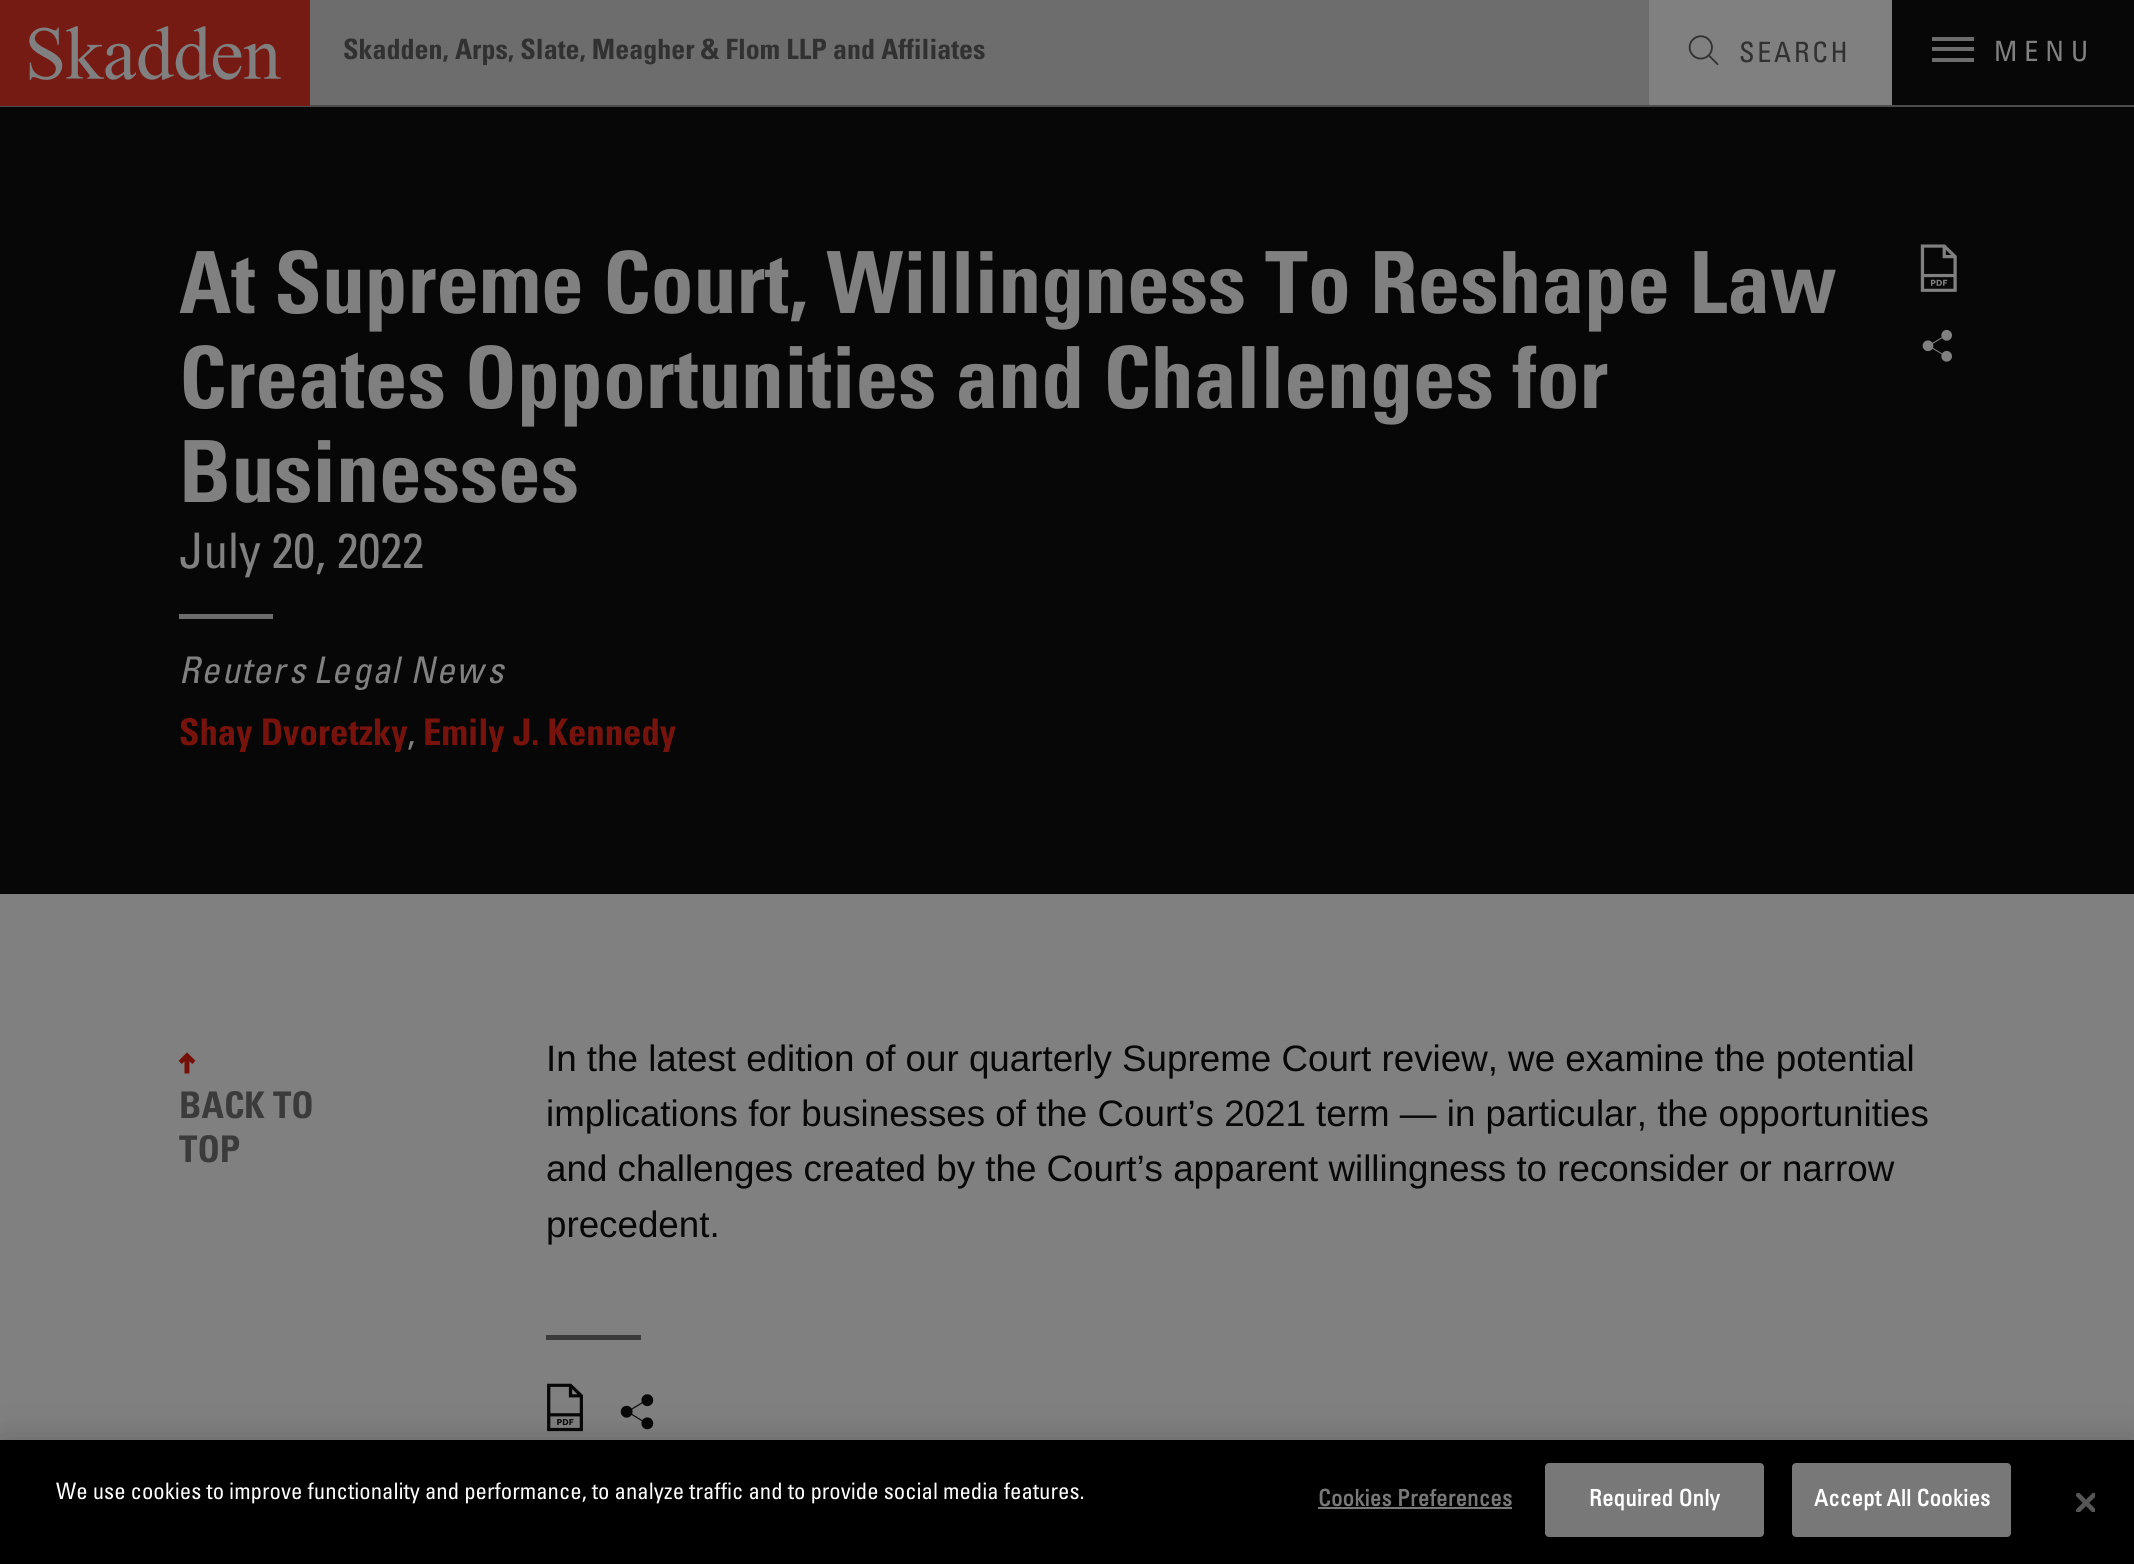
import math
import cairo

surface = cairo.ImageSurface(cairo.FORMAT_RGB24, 2134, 1564)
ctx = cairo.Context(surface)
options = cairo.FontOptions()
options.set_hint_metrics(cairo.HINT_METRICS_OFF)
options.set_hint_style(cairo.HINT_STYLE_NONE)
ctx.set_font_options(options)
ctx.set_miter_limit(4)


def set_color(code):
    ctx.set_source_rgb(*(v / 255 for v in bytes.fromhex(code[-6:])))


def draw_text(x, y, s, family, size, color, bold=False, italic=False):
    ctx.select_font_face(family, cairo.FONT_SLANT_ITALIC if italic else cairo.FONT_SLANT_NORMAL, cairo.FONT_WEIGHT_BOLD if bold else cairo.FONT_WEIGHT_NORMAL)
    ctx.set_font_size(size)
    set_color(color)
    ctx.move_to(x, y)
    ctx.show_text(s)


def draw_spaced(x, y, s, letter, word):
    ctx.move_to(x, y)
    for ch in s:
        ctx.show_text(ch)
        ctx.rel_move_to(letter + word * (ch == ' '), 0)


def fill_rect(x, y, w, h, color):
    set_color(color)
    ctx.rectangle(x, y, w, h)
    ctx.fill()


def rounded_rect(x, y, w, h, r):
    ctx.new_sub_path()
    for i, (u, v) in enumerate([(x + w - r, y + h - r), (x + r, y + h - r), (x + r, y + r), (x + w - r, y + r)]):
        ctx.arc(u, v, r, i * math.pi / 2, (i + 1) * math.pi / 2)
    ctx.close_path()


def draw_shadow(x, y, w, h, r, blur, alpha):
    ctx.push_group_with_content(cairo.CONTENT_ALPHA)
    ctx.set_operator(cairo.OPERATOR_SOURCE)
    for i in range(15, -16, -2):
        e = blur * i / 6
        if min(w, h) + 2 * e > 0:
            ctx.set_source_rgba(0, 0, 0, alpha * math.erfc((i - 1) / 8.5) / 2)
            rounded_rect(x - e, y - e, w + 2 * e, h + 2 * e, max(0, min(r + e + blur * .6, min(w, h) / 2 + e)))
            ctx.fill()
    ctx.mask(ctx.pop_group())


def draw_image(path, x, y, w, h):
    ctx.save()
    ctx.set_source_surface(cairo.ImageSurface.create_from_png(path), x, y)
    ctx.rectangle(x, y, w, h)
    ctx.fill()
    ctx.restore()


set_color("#808080")
ctx.paint()
fill_rect(0, 105, 2134, 2, "#4c4c4c")
draw_image("assets/img1.png", 0, 0, 310, 106)
fill_rect(310, 0, 1339, 105, "#6d6d6d")
draw_text(343, 59, "Skadden, Arps, Slate, Meagher & Flom LLP and Affiliates", "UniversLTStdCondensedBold", 28, "#313131")
draw_image("assets/img2.png", 1688, 35, 31, 31)
ctx.select_font_face("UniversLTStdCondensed")
draw_spaced(1739, 62, "SEARCH", 2.75, 0)
fill_rect(1892, 0, 242, 105, "#070707")
fill_rect(1932, 58, 42, 4, "#6d6d6d")
fill_rect(1932, 37, 42, 4, "#6d6d6d")
fill_rect(1932, 47, 42, 4, "#6d6d6d")
set_color("#808080")
draw_spaced(1994, 61, "MENU", 7, 0)
fill_rect(0, 107, 2134, 787, "#070707")
draw_text(179, 313, "At Supreme Court, Willingness To Reshape Law", "UniversLTStdCondensedBold", 85.75, "#808080")
draw_text(179, 408, "Creates Opportunities and Challenges for", "UniversLTStdCondensedBold", 85.75, "#808080")
draw_text(179, 502, "Businesses", "UniversLTStdCondensedBold", 85.75, "#808080")
draw_text(179, 568, "July 20, 2022", "UniversLTStdCondensed", 49, "#808080")
fill_rect(179, 614, 94, 5, "#6d6d6d")
ctx.select_font_face("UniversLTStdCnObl")
ctx.set_font_size(36.75)
set_color("#808080")
draw_spaced(179, 683, "Reuters Legal News", 1.5, 0)
draw_text(179, 745, "Shay Dvoretzky", "UniversLTStdCondensedBold", 36.75, "#77130c")
draw_text(407, 745, ",", "UniversLTStdCondensed", 36.75, "#808080")
draw_text(423, 745, "Emily J. Kennedy", "UniversLTStdCondensedBold", 36.75, "#77130c")
draw_image("assets/img3.png", 1920, 244, 37, 48)
draw_image("assets/img4.png", 1922, 329, 30, 33)
draw_image("assets/img5.png", 178, 1052, 18, 22)
draw_text(179, 1118, "BACK TO", "UniversLTStdCondensedBold", 36.75, "#3b3b3b")
draw_text(179, 1162, "TOP", "UniversLTStdCondensedBold", 36.75, "#3b3b3b")
draw_text(546, 1071, "In the latest edition of our quarterly Supreme Court review, we examine the potential", "Liberation Sans", 36.75, "#070707")
draw_text(546, 1126, "implications for businesses of the Court’s 2021 term — in particular, the opportunities", "Liberation Sans", 36.75, "#070707")
draw_text(546, 1181, "and challenges created by the Court’s apparent willingness to reconsider or narrow", "Liberation Sans", 36.75, "#070707")
draw_text(546, 1237, "precedent.", "Liberation Sans", 36.75, "#070707")
fill_rect(546, 1335, 95, 5, "#3b3b3b")
draw_image("assets/img6.png", 547, 1383, 36, 49)
draw_image("assets/img7.png", 620, 1394, 34, 36)
set_color("#000000")
draw_shadow(0, 1440, 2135, 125, 0, 16, 0.2)
fill_rect(0, 1440, 2134, 124, "#000000")
draw_text(56, 1499, "We use cookies to improve functionality and performance, to analyze traffic and to provide social media features.", "UniversLTStdCondensed", 22.75, "#ffffff")
ctx.select_font_face("UniversLTStdCondensed", cairo.FONT_SLANT_NORMAL, cairo.FONT_WEIGHT_BOLD)
set_color("#787878")
draw_spaced(1318, 1506, "Cookies Preferences", 0.25, 0)
fill_rect(1318, 1507, 194, 2, "#787878")
rounded_rect(1546, 1464, 217, 72, 3)
ctx.fill_preserve()
ctx.stroke()
set_color("#ffffff")
draw_spaced(1589, 1506, "Required Only", 0.25, 0)
set_color("#787878")
rounded_rect(1793, 1464, 217, 72, 3)
ctx.fill_preserve()
ctx.stroke()
set_color("#ffffff")
draw_spaced(1814, 1506, "Accept All Cookies", 0.25, 0)
draw_image("assets/img8.png", 2076, 1493, 19, 19)
surface.write_to_png("output.png")
